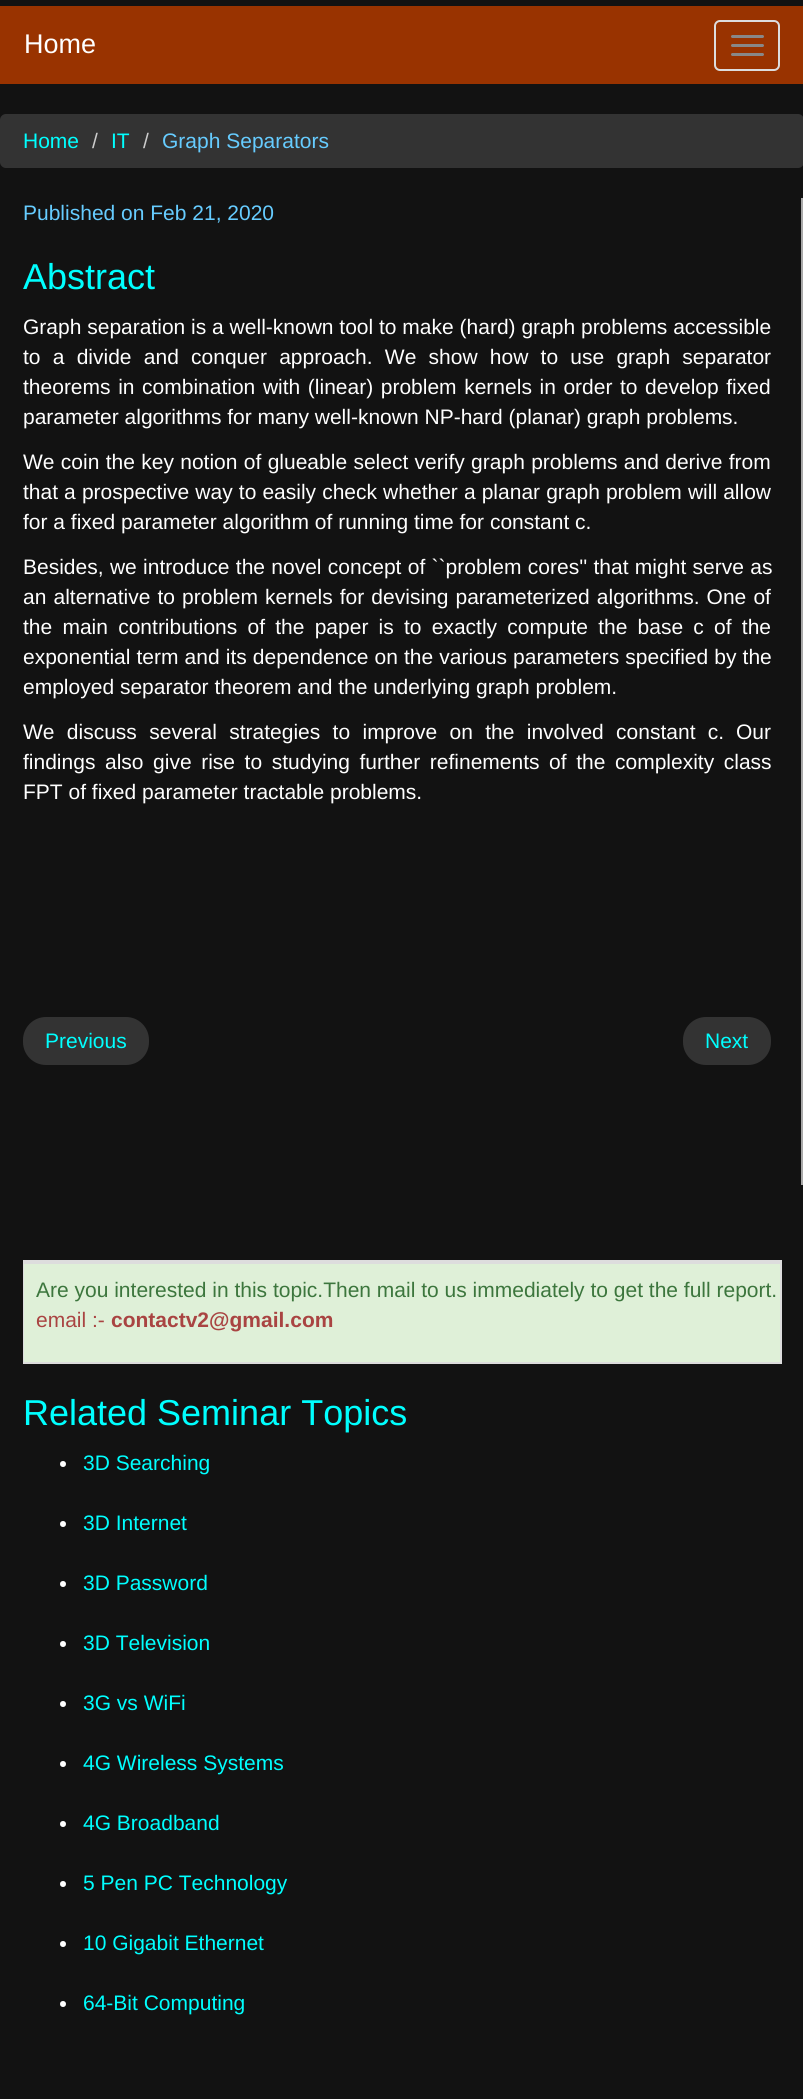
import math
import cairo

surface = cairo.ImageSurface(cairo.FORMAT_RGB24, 803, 2099)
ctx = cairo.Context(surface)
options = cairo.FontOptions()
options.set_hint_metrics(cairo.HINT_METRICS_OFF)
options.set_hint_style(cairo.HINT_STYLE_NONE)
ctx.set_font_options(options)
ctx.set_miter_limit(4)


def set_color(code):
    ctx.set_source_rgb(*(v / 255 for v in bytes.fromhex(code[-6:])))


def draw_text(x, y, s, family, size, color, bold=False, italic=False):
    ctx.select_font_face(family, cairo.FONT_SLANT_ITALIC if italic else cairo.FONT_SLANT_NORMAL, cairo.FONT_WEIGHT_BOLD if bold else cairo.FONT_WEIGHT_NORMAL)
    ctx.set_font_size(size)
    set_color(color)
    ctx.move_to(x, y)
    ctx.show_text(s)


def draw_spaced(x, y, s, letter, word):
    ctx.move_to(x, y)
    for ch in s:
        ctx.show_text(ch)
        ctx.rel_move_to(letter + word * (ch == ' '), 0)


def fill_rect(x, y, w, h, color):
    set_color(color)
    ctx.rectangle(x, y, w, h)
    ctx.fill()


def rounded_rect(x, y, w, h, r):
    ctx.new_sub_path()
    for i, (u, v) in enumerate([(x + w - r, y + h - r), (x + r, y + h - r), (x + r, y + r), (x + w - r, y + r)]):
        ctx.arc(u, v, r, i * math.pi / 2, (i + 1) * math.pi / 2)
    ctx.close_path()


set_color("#121212")
ctx.paint()
fill_rect(0, 6, 803, 78, "#993300")
draw_text(24, 53, "Home", "Liberation Sans", 27, "#ffffff")
rounded_rect(715, 21, 64, 49, 5)
set_color("#dddddd")
ctx.stroke()
set_color("#888888")
rounded_rect(731, 35, 33, 3, 1.5)
ctx.fill()
rounded_rect(731, 44, 33, 3, 1.5)
ctx.fill()
rounded_rect(731, 53, 33, 3, 1.5)
ctx.fill()
set_color("#333333")
rounded_rect(0, 114, 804, 54, 6)
ctx.fill()
draw_text(23, 148, "Home", "Liberation Sans", 21, "#00ffff")
draw_text(92, 148, "/", "Liberation Sans", 21, "#cccccc")
draw_text(111, 148, "IT", "Liberation Sans", 21, "#00ffff")
draw_text(143, 148, "/", "Liberation Sans", 21, "#cccccc")
draw_text(162, 148, "Graph Separators", "Liberation Sans", 21, "#66ccff")
fill_rect(801, 198, 2, 987, "#a9a9a9")
draw_text(23, 220, "Published on Feb 21, 2020", "Liberation Sans", 21, "#66ccff")
draw_text(23, 289, "Abstract", "Liberation Sans", 36, "#00ffff")
draw_text(23, 334, "Graph separation is a well-known tool to make (hard) graph problems accessible", "Liberation Sans", 21, "#ffffff")
draw_spaced(23, 364, "to a divide and conquer approach. We show how to use graph separator", 0, 6.4)
draw_spaced(23, 394, "theorems in combination with (linear) problem kernels in order to develop fixed", 0, 1.75)
draw_text(23, 424, "parameter algorithms for many well-known NP-hard (planar) graph problems.", "Liberation Sans", 21, "#ffffff")
draw_spaced(23, 469, "We coin the key notion of glueable select verify graph problems and derive from", 0, 0.5)
draw_spaced(23, 499, "that a prospective way to easily check whether a planar graph problem will allow", 0, 0.25)
draw_text(23, 529, "for a fixed parameter algorithm of running time for constant c.", "Liberation Sans", 21, "#ffffff")
draw_spaced(23, 574, "Besides, we introduce the novel concept of ``problem cores'' that might serve as", 0, 0.5)
draw_spaced(23, 604, "an alternative to problem kernels for devising parameterized algorithms. One of", 0, 1.25)
draw_spaced(23, 634, "the main contributions of the paper is to exactly compute the base c of the", 0, 4.4)
draw_spaced(23, 664, "exponential term and its dependence on the various parameters specified by the", 0, 0.25)
draw_text(23, 694, "employed separator theorem and the underlying graph problem.", "Liberation Sans", 21, "#ffffff")
draw_spaced(23, 739, "We discuss several strategies to improve on the involved constant c.", 0, 6.5)
draw_text(736, 739, "Our", "Liberation Sans", 21, "#ffffff")
draw_spaced(23, 769, "findings also give rise to studying further refinements of the complexity class", 0, 3.75)
draw_text(23, 799, "FPT of fixed parameter tractable problems.", "Liberation Sans", 21, "#ffffff")
set_color("#333333")
rounded_rect(24, 1018, 124, 46, 22)
ctx.fill_preserve()
ctx.stroke()
draw_text(45, 1048, "Previous", "Liberation Sans", 21, "#00ffff")
set_color("#333333")
rounded_rect(684, 1018, 86, 46, 22)
ctx.fill_preserve()
ctx.stroke()
draw_text(705, 1048, "Next", "Liberation Sans", 21, "#00ffff")
ctx.rectangle(24, 1261, 757, 102)
set_color("#dddddd")
ctx.stroke()
fill_rect(24, 1264, 756, 98, "#dff0d8")
fill_rect(24, 1262, 756, 2, "#dddddd")
draw_text(36, 1297, "Are you interested in this topic.Then mail to us immediately to get the full report.", "Liberation Sans", 21, "#3c763d")
draw_text(36, 1327, "email :-", "Liberation Sans", 21, "#a94442")
draw_text(111, 1327, "contactv2@gmail.com", "Liberation Sans", 21, "#a94442", bold=True)
draw_text(23, 1425, "Related Seminar Topics", "Liberation Sans", 36, "#00ffff")
set_color("#ffffff")
ctx.new_path()
ctx.arc(63, 1464, 3, 0, 2 * math.pi)
ctx.fill()
draw_text(83, 1470, "3D Searching", "Liberation Sans", 21, "#00ffff")
set_color("#ffffff")
ctx.new_path()
ctx.arc(63, 1524, 3, 0, 2 * math.pi)
ctx.fill()
draw_text(83, 1530, "3D Internet", "Liberation Sans", 21, "#00ffff")
set_color("#ffffff")
ctx.new_path()
ctx.arc(63, 1584, 3, 0, 2 * math.pi)
ctx.fill()
draw_text(83, 1590, "3D Password", "Liberation Sans", 21, "#00ffff")
set_color("#ffffff")
ctx.new_path()
ctx.arc(63, 1644, 3, 0, 2 * math.pi)
ctx.fill()
draw_text(83, 1650, "3D Television", "Liberation Sans", 21, "#00ffff")
set_color("#ffffff")
ctx.new_path()
ctx.arc(63, 1704, 3, 0, 2 * math.pi)
ctx.fill()
draw_text(83, 1710, "3G vs WiFi", "Liberation Sans", 21, "#00ffff")
set_color("#ffffff")
ctx.new_path()
ctx.arc(63, 1764, 3, 0, 2 * math.pi)
ctx.fill()
draw_text(83, 1770, "4G Wireless Systems", "Liberation Sans", 21, "#00ffff")
set_color("#ffffff")
ctx.new_path()
ctx.arc(63, 1824, 3, 0, 2 * math.pi)
ctx.fill()
draw_text(83, 1830, "4G Broadband", "Liberation Sans", 21, "#00ffff")
set_color("#ffffff")
ctx.new_path()
ctx.arc(63, 1884, 3, 0, 2 * math.pi)
ctx.fill()
draw_text(83, 1890, "5 Pen PC Technology", "Liberation Sans", 21, "#00ffff")
set_color("#ffffff")
ctx.new_path()
ctx.arc(63, 1944, 3, 0, 2 * math.pi)
ctx.fill()
draw_text(83, 1950, "10 Gigabit Ethernet", "Liberation Sans", 21, "#00ffff")
set_color("#ffffff")
ctx.new_path()
ctx.arc(63, 2004, 3, 0, 2 * math.pi)
ctx.fill()
draw_text(83, 2010, "64-Bit Computing", "Liberation Sans", 21, "#00ffff")
surface.write_to_png("output.png")
